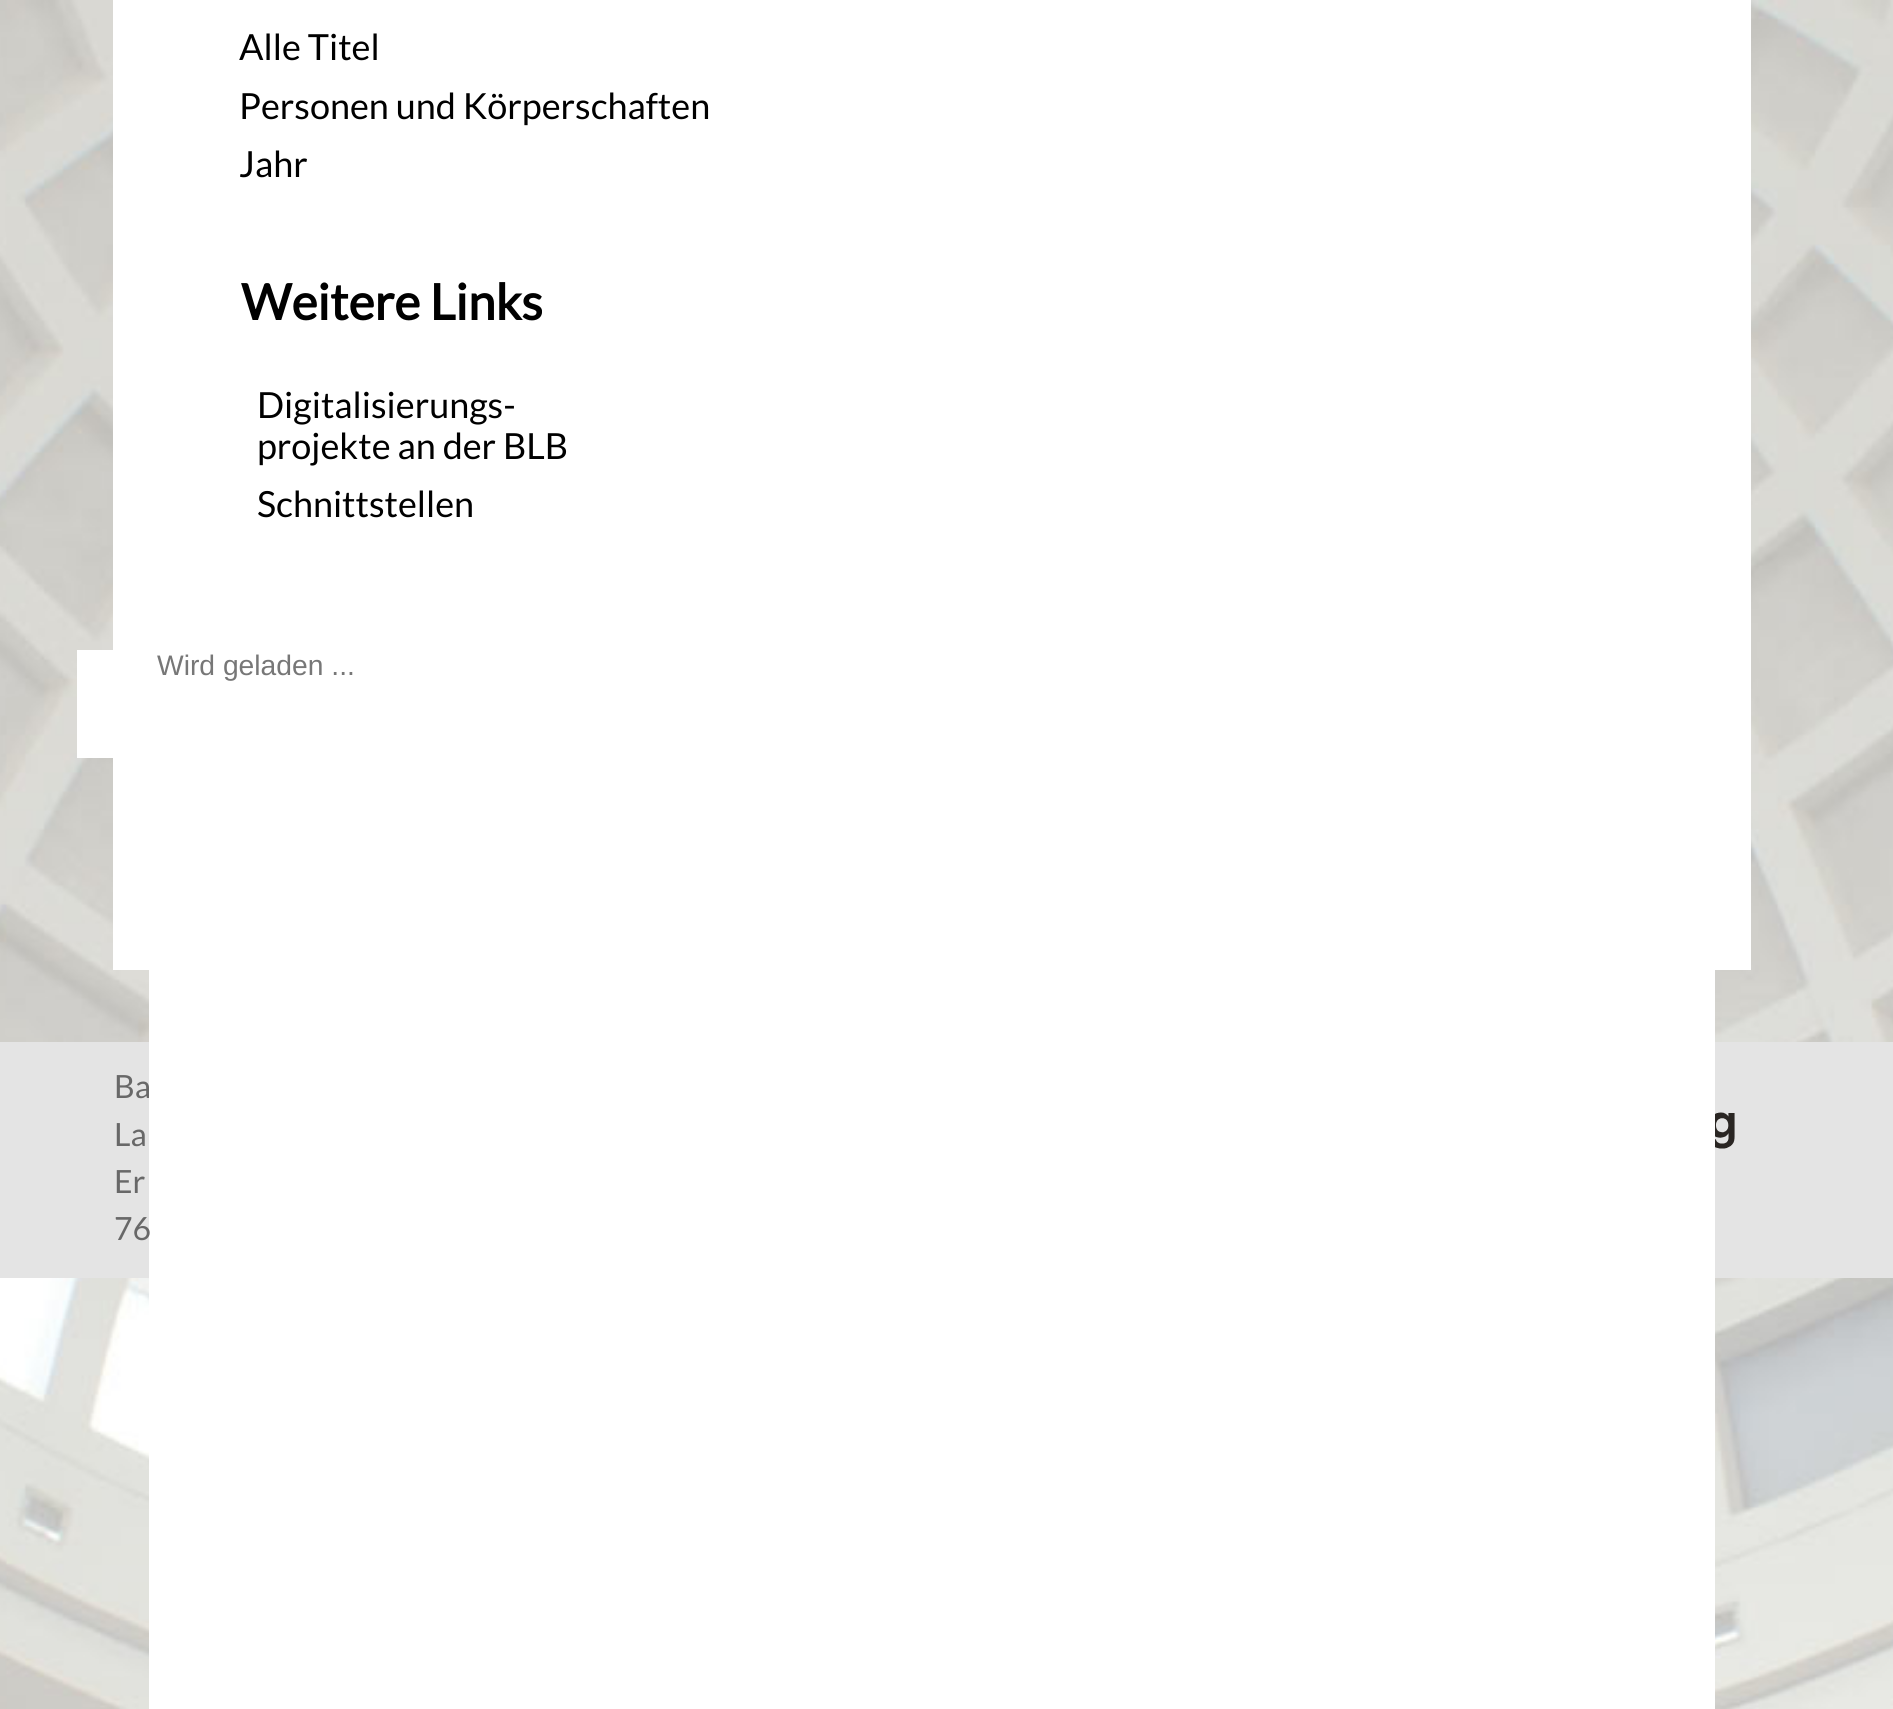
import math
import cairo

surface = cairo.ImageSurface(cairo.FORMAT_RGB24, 1893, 1709)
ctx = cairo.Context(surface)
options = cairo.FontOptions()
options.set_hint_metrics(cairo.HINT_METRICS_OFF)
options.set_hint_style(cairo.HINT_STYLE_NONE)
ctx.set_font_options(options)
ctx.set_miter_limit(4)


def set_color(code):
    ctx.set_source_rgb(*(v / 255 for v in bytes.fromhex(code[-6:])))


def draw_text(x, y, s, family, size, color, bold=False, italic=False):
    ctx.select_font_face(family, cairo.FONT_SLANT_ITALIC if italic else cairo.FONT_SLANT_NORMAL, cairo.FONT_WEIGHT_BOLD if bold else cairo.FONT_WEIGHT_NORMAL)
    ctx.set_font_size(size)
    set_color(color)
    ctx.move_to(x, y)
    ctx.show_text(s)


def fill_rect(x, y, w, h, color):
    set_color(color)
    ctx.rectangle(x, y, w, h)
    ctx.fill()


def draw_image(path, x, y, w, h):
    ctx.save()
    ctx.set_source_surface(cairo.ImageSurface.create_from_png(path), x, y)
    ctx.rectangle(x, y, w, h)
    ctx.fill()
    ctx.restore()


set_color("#ffffff")
ctx.paint()
draw_image("assets/img1.png", 0, 0, 1893, 1709)
fill_rect(113, 0, 1638, 970, "#ffffff")
draw_text(239, 60, "Alle Titel", "Lato", 36, "#000000")
draw_text(239, 119, "Personen und Körperschaften", "Lato", 36, "#000000")
draw_text(239, 177, "Jahr", "Lato", 36, "#000000")
draw_text(241, 320, "Weitere Links", "Lato", 49.5, "#000000", bold=True)
draw_text(257, 418, "Digitalisierungs-", "Lato", 36, "#000000")
draw_text(257, 459, "projekte an der BLB", "Lato", 36, "#000000")
draw_text(257, 517, "Schnittstellen", "Lato", 36, "#000000")
fill_rect(77, 650, 36, 108, "#ffffff")
fill_rect(0, 1042, 1893, 236, "#e4e4e4")
fill_rect(149, 970, 1566, 739, "#ffffff")
draw_text(157, 675, "Wird geladen ...", "Liberation Sans", 28.25, "#777777")
draw_text(114, 1098, "Ba", "Lato", 32, "#686868")
draw_text(114, 1146, "La", "Lato", 32, "#686868")
draw_text(114, 1193, "Er", "Lato", 32, "#686868")
draw_text(114, 1240, "76", "Lato", 32, "#686868")
draw_image("assets/img2.png", 1715, 1112, 20, 37)
surface.write_to_png("output.png")
